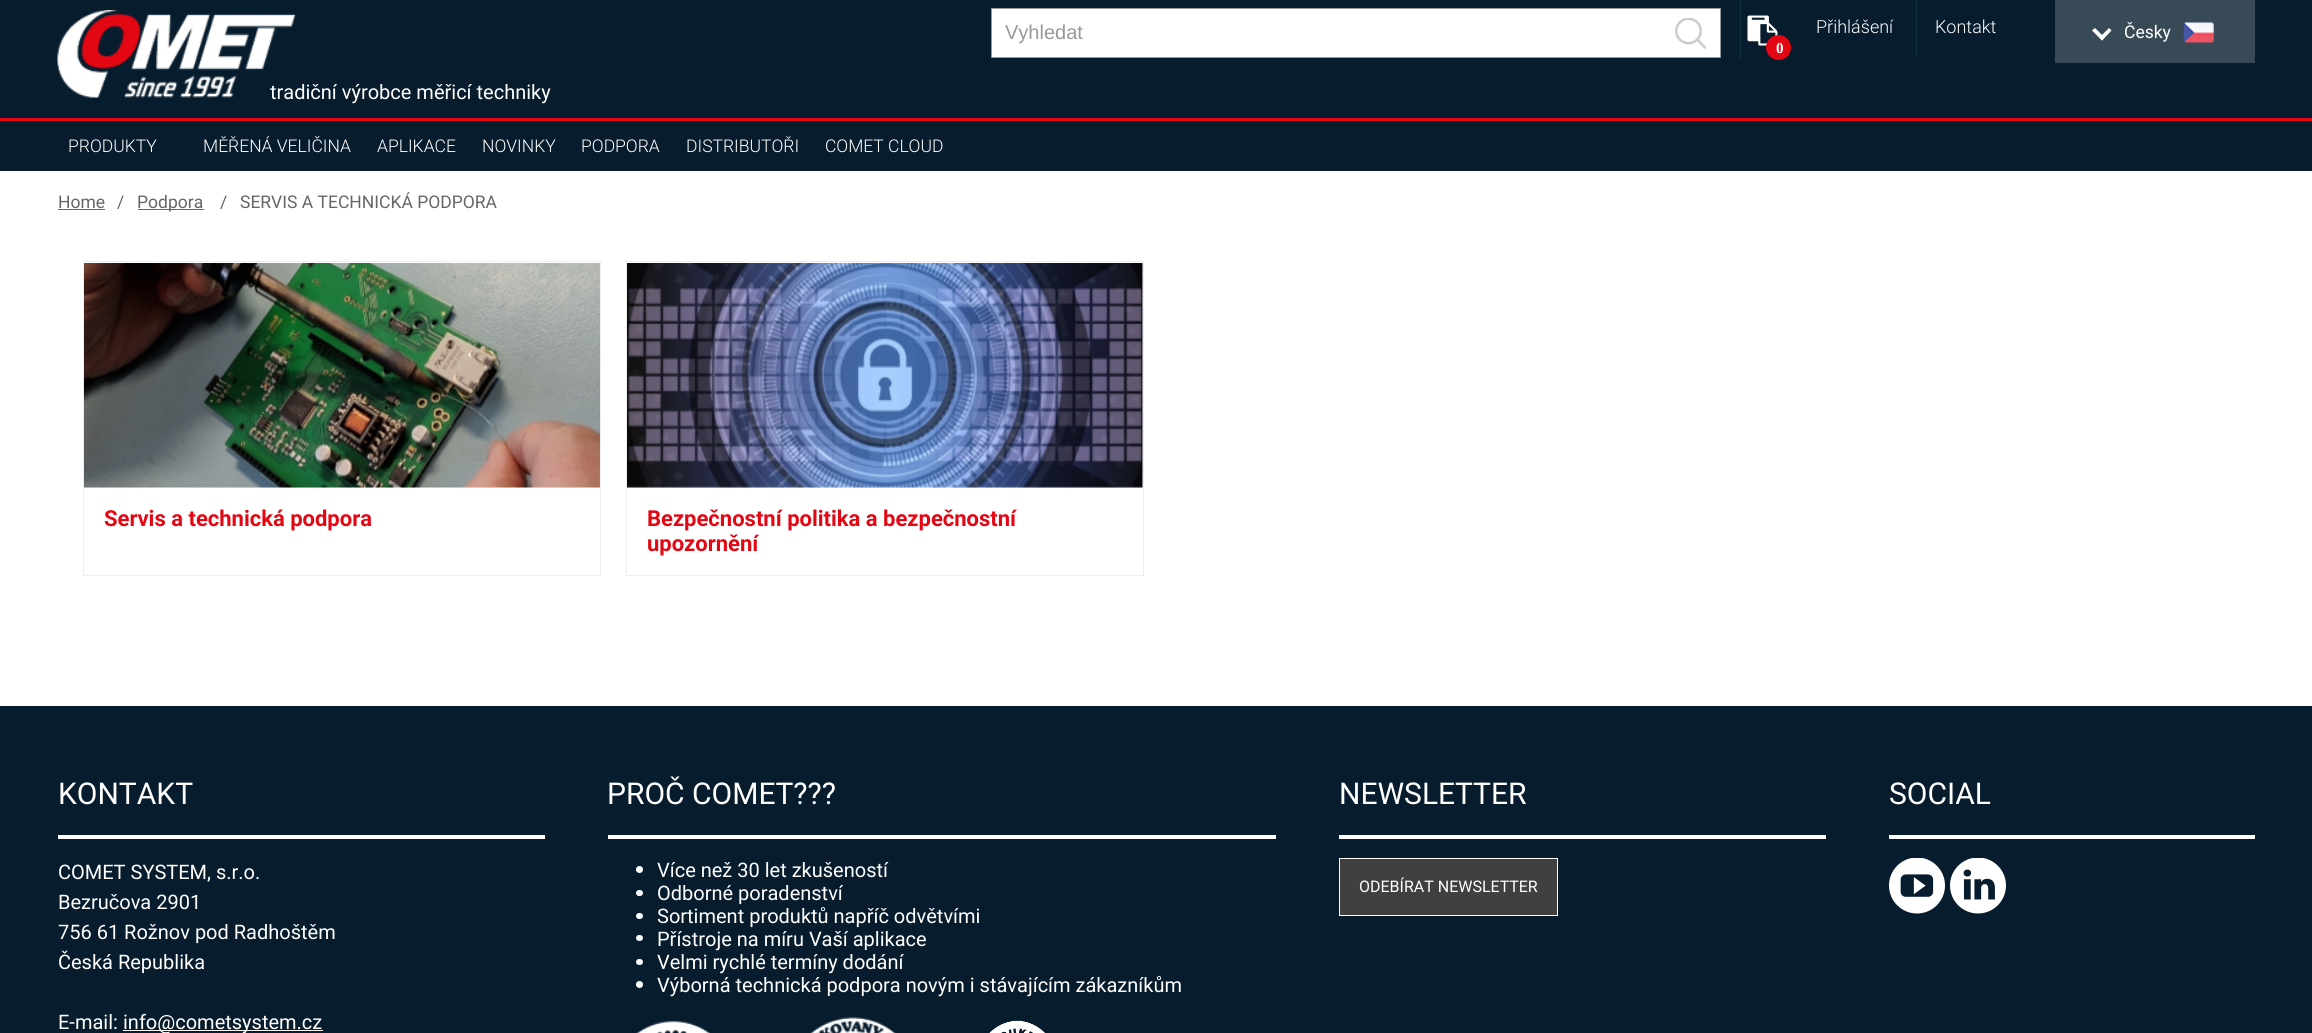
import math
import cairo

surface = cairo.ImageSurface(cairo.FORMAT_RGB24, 2312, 1033)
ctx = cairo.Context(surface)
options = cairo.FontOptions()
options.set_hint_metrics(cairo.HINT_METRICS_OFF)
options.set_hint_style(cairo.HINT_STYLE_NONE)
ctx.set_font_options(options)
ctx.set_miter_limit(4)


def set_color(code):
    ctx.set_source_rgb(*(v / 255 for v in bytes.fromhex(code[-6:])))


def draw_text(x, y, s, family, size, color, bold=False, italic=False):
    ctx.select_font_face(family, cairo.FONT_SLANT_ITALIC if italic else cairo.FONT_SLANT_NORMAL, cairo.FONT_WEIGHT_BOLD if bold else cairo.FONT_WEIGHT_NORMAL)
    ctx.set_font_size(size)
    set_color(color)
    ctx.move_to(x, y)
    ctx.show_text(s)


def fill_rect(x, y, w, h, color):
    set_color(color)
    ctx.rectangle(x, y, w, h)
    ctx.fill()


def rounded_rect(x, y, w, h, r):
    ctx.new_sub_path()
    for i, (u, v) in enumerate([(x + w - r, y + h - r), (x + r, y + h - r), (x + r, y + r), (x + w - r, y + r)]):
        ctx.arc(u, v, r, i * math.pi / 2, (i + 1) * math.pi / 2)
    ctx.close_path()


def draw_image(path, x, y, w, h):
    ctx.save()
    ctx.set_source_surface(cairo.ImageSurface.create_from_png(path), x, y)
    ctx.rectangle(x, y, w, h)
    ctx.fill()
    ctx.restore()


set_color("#ffffff")
ctx.paint()
fill_rect(0, 0, 2312, 171, "#071d2d")
draw_image("assets/img1.png", 57, 10, 239, 88)
set_color("#ffffff")
ctx.rectangle(991.5, 8.5, 729, 49)
ctx.fill_preserve()
set_color("#999999")
ctx.set_line_width(1)
ctx.stroke()
draw_text(1005, 39, "Vyhledat", "Liberation Sans", 20, "#999999")
draw_image("assets/img2.png", 1675, 18, 31, 31)
draw_text(1816, 33, "Přihlášení", "Roboto Light", 18, "#ffffff")
fill_rect(1916, 0, 1, 56, "#103144")
draw_text(1935, 33, "Kontakt", "Roboto Light", 18, "#ffffff")
fill_rect(2055, 0, 200, 63, "#394a57")
set_color("#ffffff")
ctx.new_path()
ctx.move_to(2109, 28)
ctx.line_to(2111.5, 30.5)
ctx.line_to(2102, 40.5)
ctx.line_to(2099.5, 37.5)
ctx.close_path()
ctx.fill()
ctx.new_path()
ctx.move_to(2095, 28)
ctx.line_to(2104.5, 37.5)
ctx.line_to(2102, 40.5)
ctx.line_to(2092, 30.5)
ctx.close_path()
ctx.fill()
draw_text(2124, 38, "Česky", "Roboto", 17.5, "#ffffff")
draw_image("assets/img3.png", 2183, 22, 31, 21)
fill_rect(1740, 0, 1, 60, "#103144")
draw_image("assets/img4.png", 1747, 15, 31, 31)
set_color("#e30613")
ctx.arc(1778.5, 47.5, 12.5, 0, 2 * math.pi)
ctx.fill()
draw_text(1776, 53, "0", "Liberation Serif", 15, "#ffffff", bold=True)
draw_text(270, 99, "tradiční výrobce měřicí techniky", "Roboto", 20, "#ffffff")
fill_rect(0, 118, 2312, 3, "#e30613")
draw_text(68, 152, "PRODUKTY", "Roboto Light", 17.5, "#ffffff")
draw_text(203, 152, "MĚŘENÁ VELIČINA", "Roboto Light", 17.5, "#ffffff")
draw_text(377, 152, "APLIKACE", "Roboto Light", 17.5, "#ffffff")
draw_text(482, 152, "NOVINKY", "Roboto Light", 17.5, "#ffffff")
draw_text(581, 152, "PODPORA", "Roboto Light", 17.5, "#ffffff")
draw_text(686, 152, "DISTRIBUTOŘI", "Roboto Light", 17.5, "#ffffff")
draw_text(825, 152, "COMET CLOUD", "Roboto Light", 17.5, "#ffffff")
draw_text(58, 208, "Home", "Roboto", 17.5, "#666666")
fill_rect(58, 209, 47, 1, "#666666")
draw_text(117, 208, "/", "Roboto", 17.5, "#666666")
fill_rect(138, 209, 66, 1, "#666666")
draw_text(137, 208, "Podpora", "Roboto", 17.5, "#666666")
draw_text(220, 208, "/", "Roboto", 17.5, "#666666")
draw_text(240, 208, "SERVIS A TECHNICKÁ PODPORA", "Roboto", 17.5, "#666666")
ctx.rectangle(83.5, 261.5, 517, 314)
set_color("#eeeeee")
ctx.stroke()
draw_image("assets/img5.png", 84, 263, 516, 225)
draw_text(104, 526, "Servis a technická podpora", "Roboto", 22, "#e30613", bold=True)
ctx.rectangle(626.5, 261.5, 517, 314)
set_color("#eeeeee")
ctx.stroke()
draw_image("assets/img6.png", 627, 263, 516, 225)
draw_text(647, 526, "Bezpečnostní politika a bezpečnostní", "Roboto", 22, "#e30613", bold=True)
draw_text(647, 551, "upozornění", "Roboto", 22, "#e30613", bold=True)
fill_rect(0, 706, 2312, 327, "#071c2d")
fill_rect(58, 835, 487, 4, "#ffffff")
draw_text(58, 804, "KONTAKT", "Roboto", 30, "#ffffff")
draw_text(58, 879, "COMET SYSTEM, s.r.o.", "Roboto", 20, "#ffffff")
draw_text(58, 909, "Bezručova 2901", "Roboto", 20, "#ffffff")
draw_text(58, 939, "756 61 Rožnov pod Radhoštěm", "Roboto", 20, "#ffffff")
draw_text(58, 969, "Česká Republika", "Roboto", 20, "#ffffff")
draw_text(58, 1029, "E-mail:", "Roboto", 20, "#ffffff")
fill_rect(123, 1030, 200, 1, "#ffffff")
draw_text(123, 1029, "info@cometsystem.cz", "Roboto", 20, "#ffffff")
fill_rect(608, 835, 668, 4, "#ffffff")
draw_text(607, 804, "PROČ COMET???", "Roboto", 30, "#ffffff")
ctx.new_path()
ctx.arc(639.5, 869.5, 3.5, 0, 2 * math.pi)
ctx.fill()
draw_text(657, 877, "Více než 30 let zkušeností", "Roboto", 20, "#ffffff")
rounded_rect(636, 890, 7, 6, 3)
ctx.fill()
draw_text(657, 900, "Odborné poradenství", "Roboto", 20, "#ffffff")
rounded_rect(636, 913, 7, 6, 3)
ctx.fill()
draw_text(657, 923, "Sortiment produktů napříč odvětvími", "Roboto", 20, "#ffffff")
rounded_rect(636, 935, 7, 6, 3)
ctx.fill()
draw_text(657, 946, "Přístroje na míru Vaší aplikace", "Roboto", 20, "#ffffff")
rounded_rect(636, 959, 7, 6, 3)
ctx.fill()
draw_text(657, 969, "Velmi rychlé termíny dodání", "Roboto", 20, "#ffffff")
ctx.new_path()
ctx.arc(639.5, 984.5, 3.5, 0, 2 * math.pi)
ctx.fill()
draw_text(657, 992, "Výborná technická podpora novým i stávajícím zákazníkům", "Roboto", 20, "#ffffff")
draw_image("assets/img7.png", 636, 1021, 74, 12)
draw_image("assets/img8.png", 810, 1017, 86, 16)
draw_image("assets/img9.png", 989, 1020, 56, 13)
fill_rect(1339, 835, 487, 4, "#ffffff")
draw_text(1339, 804, "NEWSLETTER", "Roboto", 30, "#ffffff")
set_color("#404040")
ctx.rectangle(1339.5, 858.5, 218, 57)
ctx.fill_preserve()
set_color("#ffffff")
ctx.stroke()
draw_text(1359, 892, "ODEBÍRAT NEWSLETTER", "Roboto", 16, "#ffffff")
fill_rect(1889, 835, 366, 4, "#ffffff")
draw_text(1889, 804, "SOCIAL", "Roboto", 30, "#ffffff")
draw_image("assets/img10.png", 1889, 858, 56, 56)
draw_image("assets/img11.png", 1950, 858, 56, 56)
surface.write_to_png("output.png")
